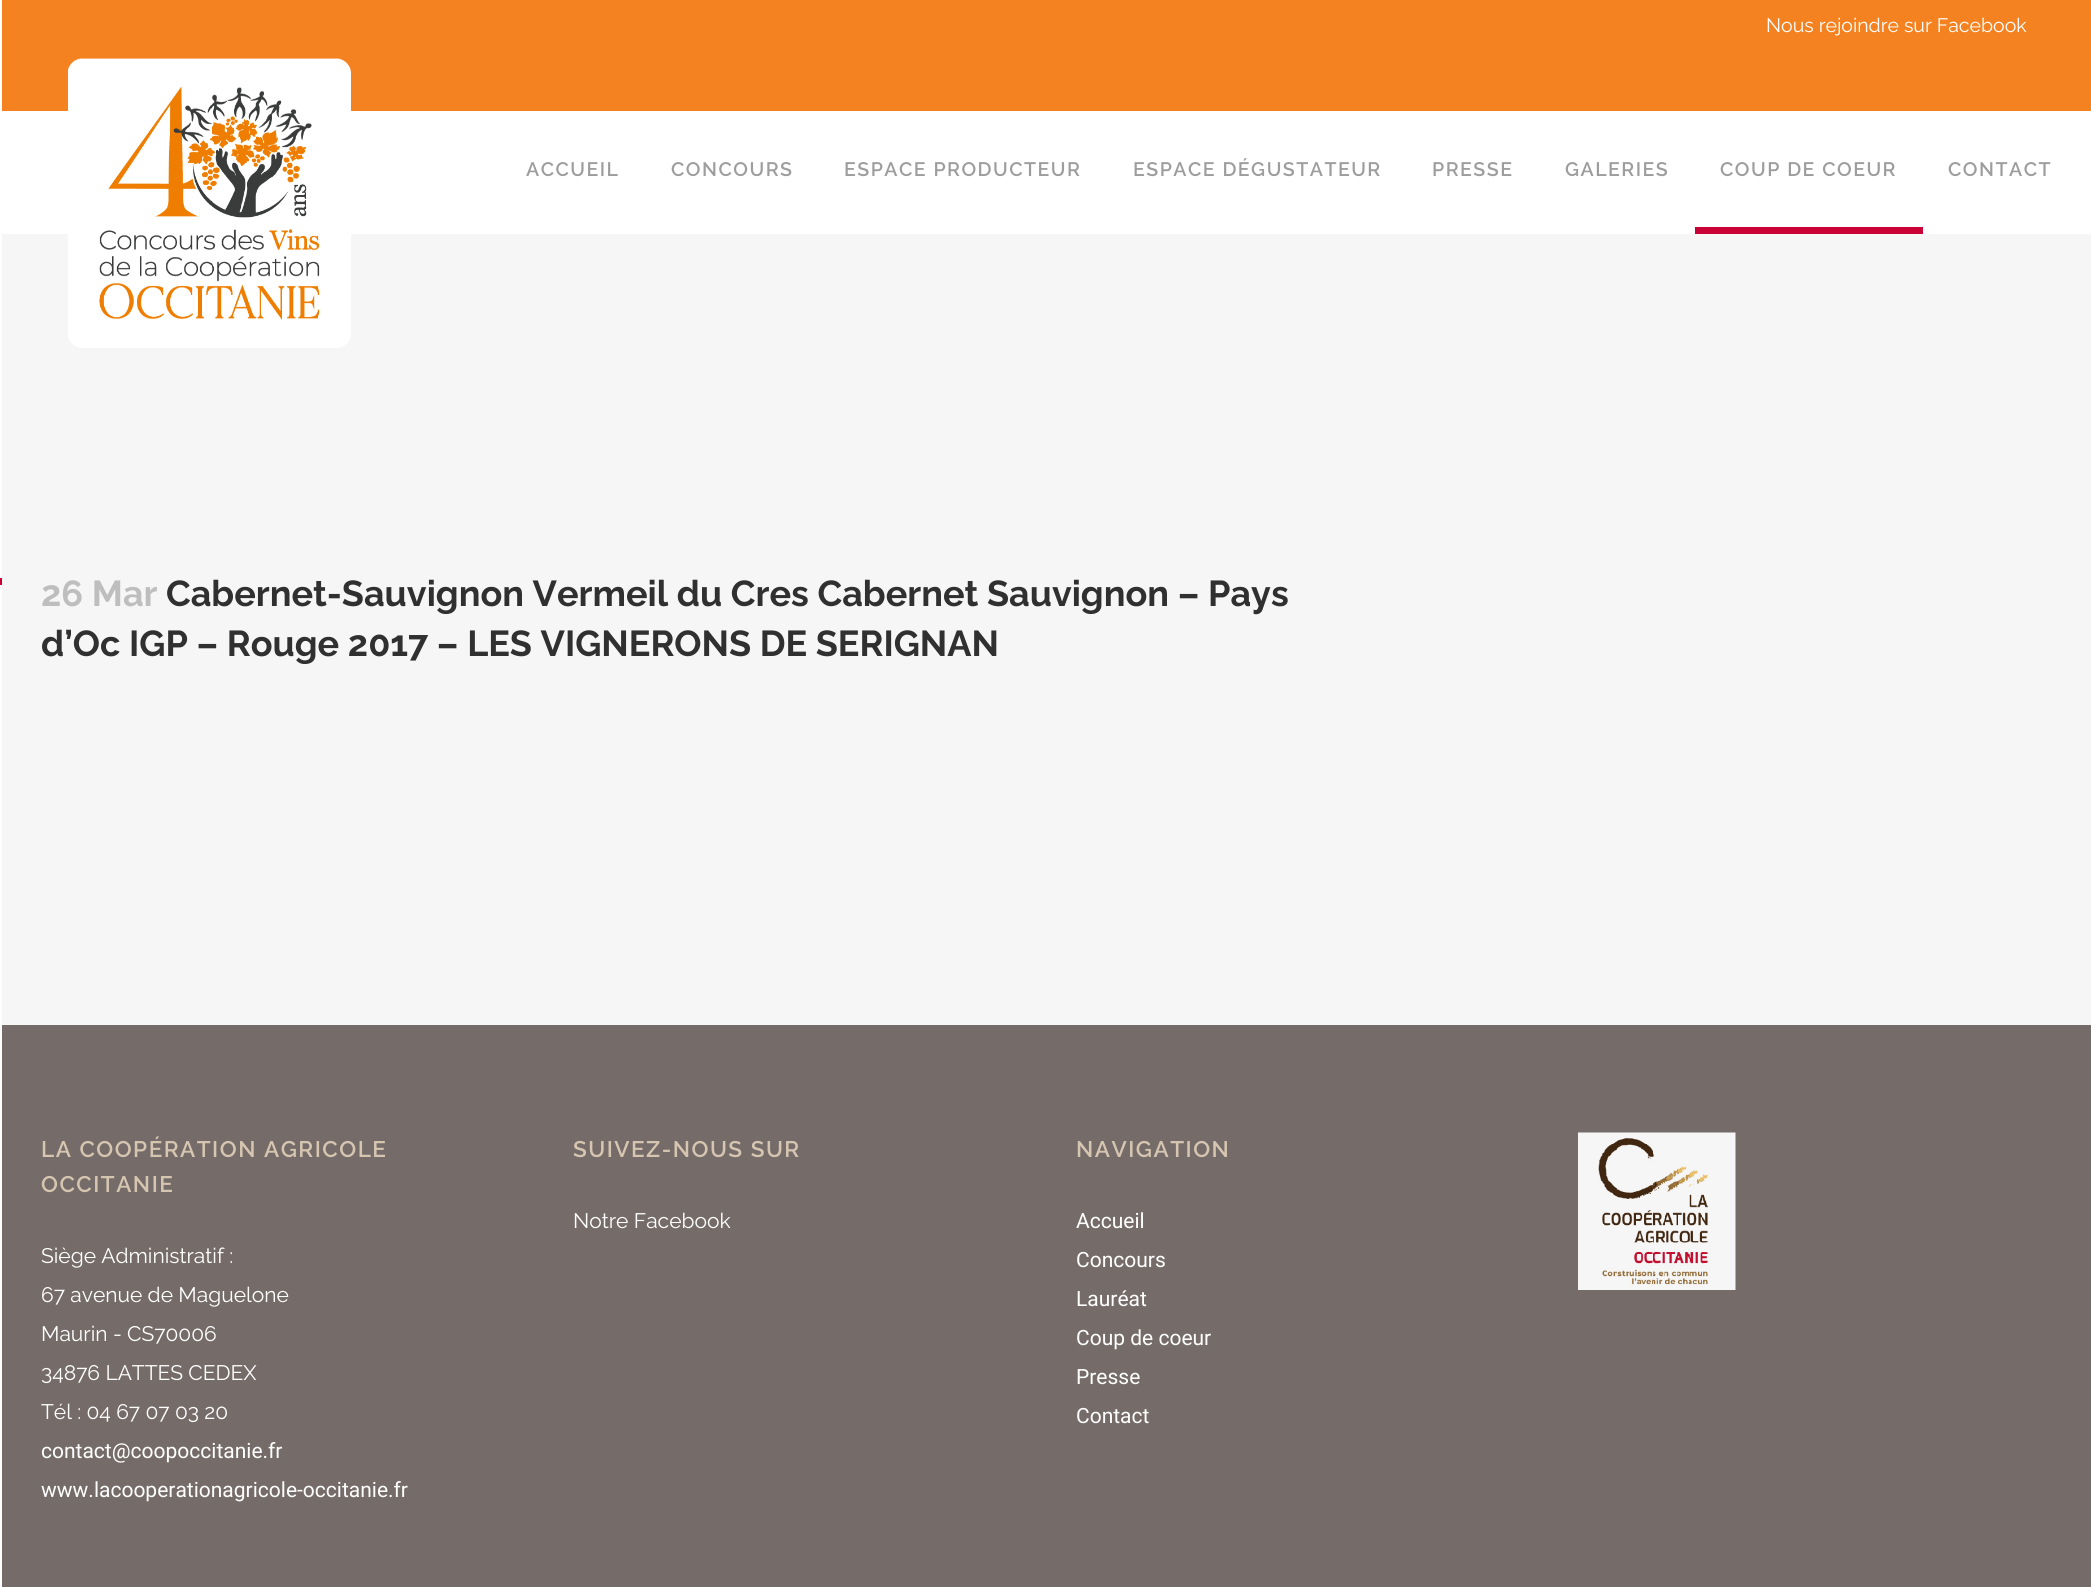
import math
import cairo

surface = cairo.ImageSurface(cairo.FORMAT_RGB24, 2091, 1587)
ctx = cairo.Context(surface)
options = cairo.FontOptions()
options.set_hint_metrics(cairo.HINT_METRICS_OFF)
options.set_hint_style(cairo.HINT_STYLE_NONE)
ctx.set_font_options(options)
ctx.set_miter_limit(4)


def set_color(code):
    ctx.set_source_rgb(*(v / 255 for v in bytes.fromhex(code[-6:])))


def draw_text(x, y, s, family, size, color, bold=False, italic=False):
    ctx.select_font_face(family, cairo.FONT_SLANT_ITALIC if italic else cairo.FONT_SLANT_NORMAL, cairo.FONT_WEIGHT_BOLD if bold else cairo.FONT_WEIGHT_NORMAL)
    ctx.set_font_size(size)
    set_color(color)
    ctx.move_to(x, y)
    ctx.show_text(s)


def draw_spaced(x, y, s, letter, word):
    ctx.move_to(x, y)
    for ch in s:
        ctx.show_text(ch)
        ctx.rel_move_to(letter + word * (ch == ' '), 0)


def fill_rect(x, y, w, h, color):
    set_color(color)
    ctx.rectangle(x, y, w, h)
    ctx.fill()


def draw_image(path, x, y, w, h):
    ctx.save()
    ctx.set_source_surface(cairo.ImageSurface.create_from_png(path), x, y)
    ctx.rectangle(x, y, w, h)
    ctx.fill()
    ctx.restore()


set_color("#f6f6f6")
ctx.paint()
fill_rect(0, 0, 2, 1587, "#ffffff")
fill_rect(0, 578, 2, 7, "#ca0137")
fill_rect(2, 0, 2089, 111, "#f58220")
draw_text(1766, 32, "Nous rejoindre sur Facebook", "Raleway", 19.5, "#ffffff")
fill_rect(2, 111, 2089, 123, "#ffffff")
draw_image("assets/img1.png", 68, 58, 283, 290)
ctx.select_font_face("Raleway SemiBold")
set_color("#9d9d9d")
draw_spaced(526, 176, "ACCUEIL", 1.5, 0)
draw_spaced(671, 176, "CONCOURS", 1.5, 0)
draw_spaced(844, 176, "ESPACE PRODUCTEUR", 1.5, 0)
draw_spaced(1133, 176, "ESPACE DÉGUSTATEUR", 1.5, 0)
draw_spaced(1432, 176, "PRESSE", 1.5, 0)
draw_spaced(1565, 176, "GALERIES", 1.5, 0)
fill_rect(1695, 227, 228, 7, "#ca0137")
set_color("#9d9d9d")
draw_spaced(1720, 176, "COUP DE COEUR", 1.5, 0)
draw_spaced(1948, 176, "CONTACT", 1.5, 0)
draw_text(41, 606, "26 Mar", "Raleway", 36, "#bebebe", bold=True)
draw_text(166, 606, "Cabernet-Sauvignon Vermeil du Cres Cabernet Sauvignon – Pays", "Raleway", 36, "#303030", bold=True)
draw_text(41, 656, "d’Oc IGP – Rouge 2017 – LES VIGNERONS DE SERIGNAN", "Raleway", 36, "#303030", bold=True)
fill_rect(2, 1025, 2089, 562, "#756c69")
ctx.select_font_face("Raleway SemiBold")
ctx.set_font_size(22.5)
set_color("#d6c6b1")
draw_spaced(41, 1157, "LA COOPÉRATION AGRICOLE", 1.5, 0)
draw_spaced(41, 1192, "OCCITANIE", 1.5, 0)
draw_text(41, 1263, "Siège Administratif :", "Raleway", 21, "#ffffff")
draw_text(41, 1302, "67 avenue de Maguelone", "Raleway", 21, "#ffffff")
draw_text(41, 1341, "Maurin - CS70006", "Raleway", 21, "#ffffff")
draw_text(41, 1380, "34876 LATTES CEDEX", "Raleway", 21, "#ffffff")
draw_text(41, 1419, "Tél : 04 67 07 03 20", "Raleway", 21, "#ffffff")
draw_text(41, 1458, "contact@coopoccitanie.fr", "Roboto", 21, "#ffffff")
draw_text(41, 1497, "www.lacooperationagricole-occitanie.fr", "Roboto", 21, "#ffffff")
ctx.select_font_face("Raleway SemiBold")
ctx.set_font_size(22.5)
set_color("#d6c6b1")
draw_spaced(573, 1157, "SUIVEZ-NOUS SUR", 1.5, 0)
draw_text(573, 1228, "Notre Facebook", "Raleway", 21, "#ffffff")
ctx.select_font_face("Raleway SemiBold")
ctx.set_font_size(22.5)
set_color("#d6c6b1")
draw_spaced(1076, 1157, "NAVIGATION", 1.5, 0)
draw_text(1076, 1228, "Accueil", "Roboto", 21, "#ffffff")
draw_text(1076, 1267, "Concours", "Roboto", 21, "#ffffff")
draw_text(1076, 1306, "Lauréat", "Roboto", 21, "#ffffff")
draw_text(1076, 1345, "Coup de coeur", "Roboto", 21, "#ffffff")
draw_text(1076, 1384, "Presse", "Roboto", 21, "#ffffff")
draw_text(1076, 1423, "Contact", "Roboto", 21, "#ffffff")
draw_image("assets/img2.png", 1578, 1132, 158, 158)
surface.write_to_png("output.png")
